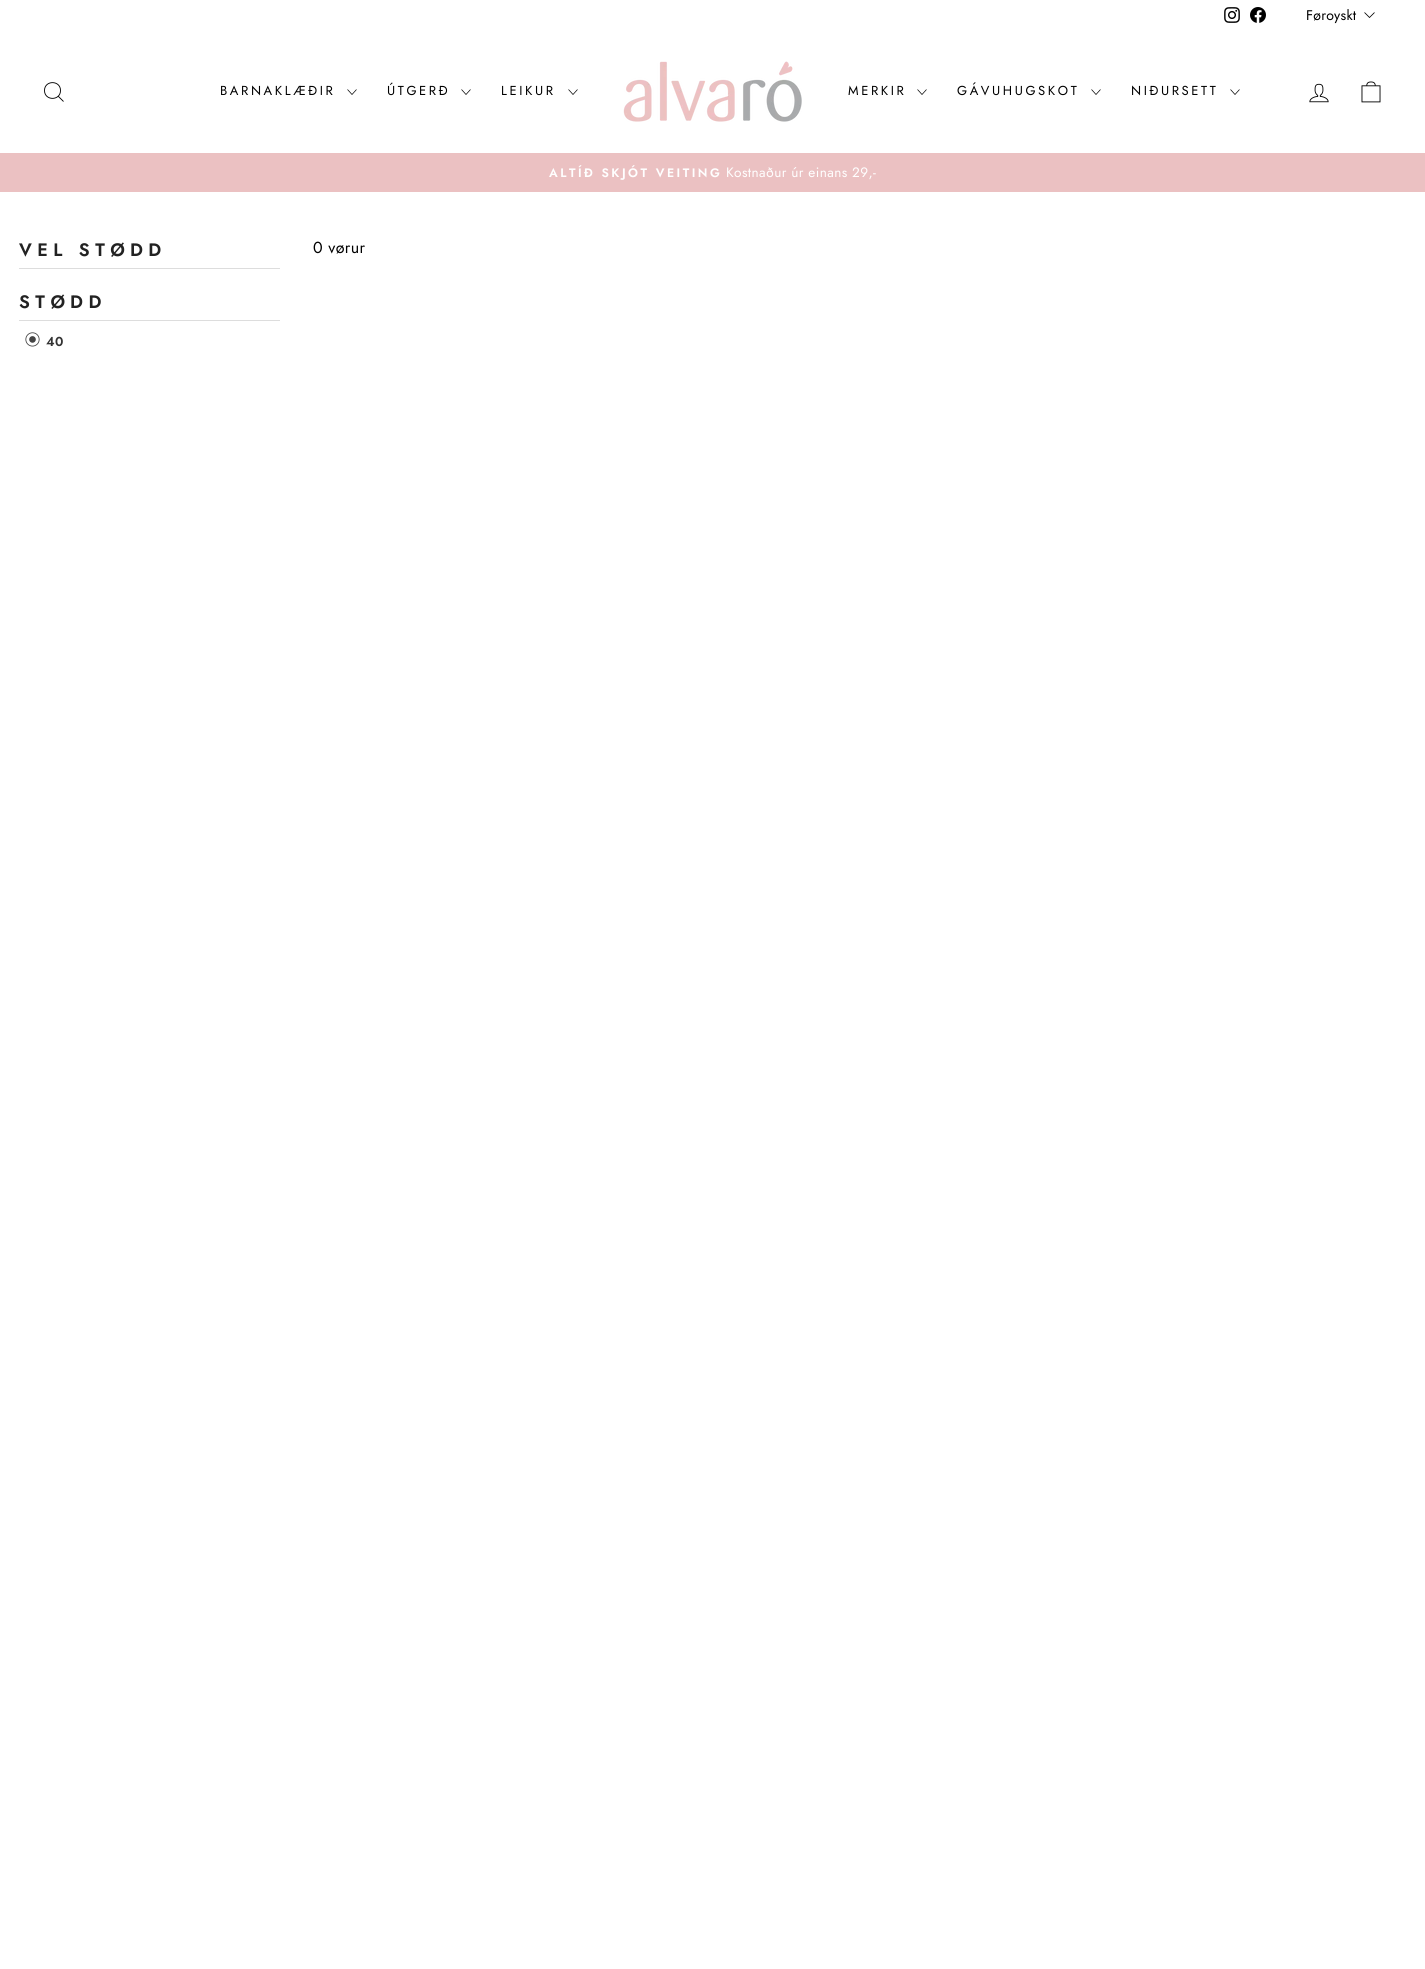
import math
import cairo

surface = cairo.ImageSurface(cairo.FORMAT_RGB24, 1425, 1969)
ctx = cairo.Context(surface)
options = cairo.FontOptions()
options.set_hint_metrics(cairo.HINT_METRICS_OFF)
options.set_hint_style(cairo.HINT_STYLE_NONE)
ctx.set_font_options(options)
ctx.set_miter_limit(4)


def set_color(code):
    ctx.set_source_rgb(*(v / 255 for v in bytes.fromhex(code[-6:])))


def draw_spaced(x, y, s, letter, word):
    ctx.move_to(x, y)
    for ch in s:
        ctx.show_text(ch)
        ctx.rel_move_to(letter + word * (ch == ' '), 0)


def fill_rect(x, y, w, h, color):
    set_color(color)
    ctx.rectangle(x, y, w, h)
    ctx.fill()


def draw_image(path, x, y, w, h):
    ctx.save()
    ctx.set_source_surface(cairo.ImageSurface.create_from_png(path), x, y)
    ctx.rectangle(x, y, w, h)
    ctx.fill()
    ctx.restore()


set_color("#ffffff")
ctx.paint()
draw_image("assets/img1.png", 1224, 7, 16, 16)
draw_image("assets/img2.png", 1250, 7, 16, 16)
ctx.select_font_face("Jost")
ctx.set_font_size(14)
set_color("#000000")
draw_spaced(1306, 20, "Føroyskt", 0.25, 0)
ctx.new_path()
ctx.move_to(1364.5, 12.5)
ctx.line_to(1369.5, 17.5)
ctx.line_to(1374.5, 12.5)
ctx.set_line_width(0.8)
ctx.stroke()
ctx.new_path()
ctx.move_to(60.5, 90.5)
ctx.curve_to(60.5, 101, 44.5, 101, 44.5, 90.5)
ctx.curve_to(44.5, 80, 60.5, 80, 60.5, 90.5)
ctx.close_path()
ctx.move_to(63.5, 101.5)
ctx.line_to(58.5, 96.5)
ctx.set_line_width(0.9)
ctx.stroke()
ctx.set_font_size(13)
draw_spaced(220, 95, "BARNAKLÆÐIR", 2.6, 0)
ctx.new_path()
ctx.move_to(347.5, 89.5)
ctx.line_to(352, 94.5)
ctx.line_to(356.5, 89.5)
ctx.set_line_width(0.7)
ctx.stroke()
draw_spaced(387, 95, "ÚTGERÐ", 2.6, 0)
ctx.new_path()
ctx.move_to(461.5, 89.5)
ctx.line_to(466, 94.5)
ctx.line_to(470.5, 89.5)
ctx.stroke()
draw_spaced(501, 95, "LEIKUR", 2.6, 0)
ctx.new_path()
ctx.move_to(568.5, 89.5)
ctx.line_to(573, 94.5)
ctx.line_to(577.5, 89.5)
ctx.stroke()
draw_image("assets/img3.png", 623, 61, 179, 61)
draw_spaced(848, 95, "MERKIR", 2.6, 0)
ctx.new_path()
ctx.move_to(917.5, 89.5)
ctx.line_to(922, 94.5)
ctx.line_to(926.5, 89.5)
ctx.stroke()
draw_spaced(957, 95, "GÁVUHUGSKOT", 2.6, 0)
ctx.new_path()
ctx.move_to(1091.5, 89.5)
ctx.line_to(1096, 94.5)
ctx.line_to(1100.5, 89.5)
ctx.stroke()
draw_spaced(1131, 95, "NIÐURSETT", 2.6, 0)
ctx.new_path()
ctx.move_to(1230.5, 89.5)
ctx.line_to(1235, 94.5)
ctx.line_to(1239.5, 89.5)
ctx.stroke()
draw_image("assets/img4.png", 1309, 83, 20, 20)
draw_image("assets/img5.png", 1361, 81, 20, 22)
fill_rect(0, 153, 1425, 39, "#ebc1c2")
ctx.select_font_face("Jost SemiBold")
ctx.set_font_size(12.25)
set_color("#ffffff")
draw_spaced(549, 177, "ALTÍÐ SKJÓT VEITING", 2.5, 0)
ctx.select_font_face("Jost")
ctx.set_font_size(13.6)
draw_spaced(726, 177, "Kostnaður úr einans 29,-", 0.4, 0)
fill_rect(19, 268, 261, 1, "#dddddd")
ctx.select_font_face("Jost SemiBold")
ctx.set_font_size(18)
set_color("#222222")
draw_spaced(19, 256, "VEL STØDD", 5.5, 0)
fill_rect(19, 320, 261, 1, "#dddddd")
set_color("#222222")
draw_spaced(19, 308, "STØDD", 5.5, 0)
draw_image("assets/img6.png", 25, 332, 15, 15)
ctx.set_font_size(13)
set_color("#333333")
draw_spaced(46, 346, "40", 0.4, 0)
ctx.select_font_face("Jost")
ctx.set_font_size(16)
set_color("#000000")
draw_spaced(313, 253, "0 vørur", 0.4, 0)
surface.write_to_png("output.png")
